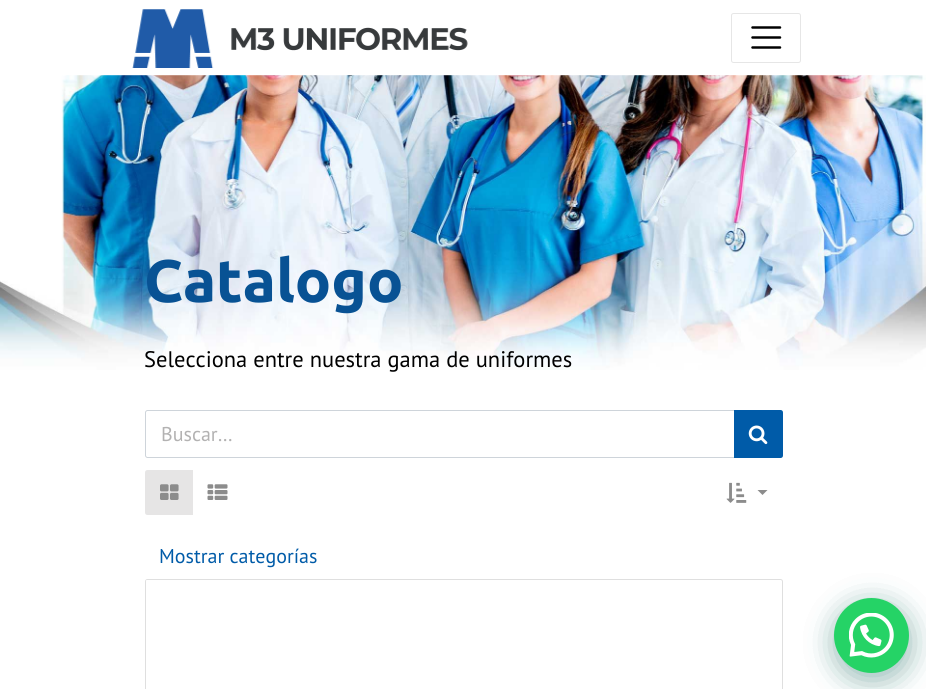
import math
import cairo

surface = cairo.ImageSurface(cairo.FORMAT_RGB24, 926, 689)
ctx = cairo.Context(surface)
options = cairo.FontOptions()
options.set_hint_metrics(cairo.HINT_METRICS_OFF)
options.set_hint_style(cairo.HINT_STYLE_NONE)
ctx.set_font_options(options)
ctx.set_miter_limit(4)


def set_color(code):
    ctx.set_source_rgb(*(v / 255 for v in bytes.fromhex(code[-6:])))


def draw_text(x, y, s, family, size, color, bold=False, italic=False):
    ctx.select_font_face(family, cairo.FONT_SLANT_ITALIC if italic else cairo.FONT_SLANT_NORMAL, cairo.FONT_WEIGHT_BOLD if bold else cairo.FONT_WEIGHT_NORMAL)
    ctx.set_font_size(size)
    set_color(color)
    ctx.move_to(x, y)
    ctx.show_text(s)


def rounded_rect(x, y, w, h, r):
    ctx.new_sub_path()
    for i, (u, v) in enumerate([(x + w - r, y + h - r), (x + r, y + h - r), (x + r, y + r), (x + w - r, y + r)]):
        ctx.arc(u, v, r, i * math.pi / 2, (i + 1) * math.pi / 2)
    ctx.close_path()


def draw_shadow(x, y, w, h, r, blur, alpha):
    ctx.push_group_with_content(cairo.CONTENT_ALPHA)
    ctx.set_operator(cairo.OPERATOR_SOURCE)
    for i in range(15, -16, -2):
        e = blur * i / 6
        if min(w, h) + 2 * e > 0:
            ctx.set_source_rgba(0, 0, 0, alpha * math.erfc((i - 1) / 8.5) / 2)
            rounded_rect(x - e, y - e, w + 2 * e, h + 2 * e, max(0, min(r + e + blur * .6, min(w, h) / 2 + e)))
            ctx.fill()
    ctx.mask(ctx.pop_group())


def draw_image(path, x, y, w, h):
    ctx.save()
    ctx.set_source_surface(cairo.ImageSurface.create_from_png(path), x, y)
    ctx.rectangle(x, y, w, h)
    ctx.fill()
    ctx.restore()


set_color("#ffffff")
ctx.paint()
draw_image("assets/img1.png", 132, 9, 336, 59)
rounded_rect(731.5, 13.5, 69, 49, 2)
set_color("#e6e6e6")
ctx.set_line_width(1)
ctx.stroke()
ctx.new_path()
ctx.move_to(752.5, 27.5)
ctx.line_to(780, 27.5)
ctx.move_to(752.5, 37.5)
ctx.line_to(780, 37.5)
ctx.move_to(752.5, 47.5)
ctx.line_to(780, 47.5)
set_color("#000000")
ctx.set_line_width(2.5)
ctx.set_line_cap(cairo.LINE_CAP_ROUND)
ctx.stroke()
draw_image("assets/img2.png", 0, 75, 926, 295)
draw_text(144, 302, "Catalogo", "Ubuntu", 60, "#085294", bold=True)
draw_text(144, 367, "Selecciona entre nuestra gama de uniformes", "PT Sans", 22.5, "#000000")
ctx.new_path()
ctx.move_to(147.5, 410.5)
ctx.line_to(734.5, 410.5)
ctx.line_to(734.5, 457.5)
ctx.line_to(147.5, 457.5)
ctx.curve_to(146.5, 457.5, 145.5, 456.5, 145.5, 455.5)
ctx.line_to(145.5, 412.5)
ctx.curve_to(145.5, 411.5, 146.5, 410.5, 147.5, 410.5)
ctx.close_path()
set_color("#ced4da")
ctx.set_line_width(1)
ctx.set_line_cap(cairo.LINE_CAP_BUTT)
ctx.stroke()
draw_text(161, 441, "Buscar…", "PT Sans", 20, "#b3b2b2")
set_color("#005ba8")
ctx.new_path()
ctx.move_to(734, 410)
ctx.line_to(780.5, 410)
ctx.curve_to(782, 410, 783, 411, 783, 412.5)
ctx.line_to(783, 455.5)
ctx.curve_to(783, 457, 782, 458, 780.5, 458)
ctx.line_to(734, 458)
ctx.close_path()
ctx.fill()
draw_image("assets/img3.png", 748, 425, 20, 20)
set_color("#e6e5e5")
ctx.new_path()
ctx.move_to(147.5, 470)
ctx.line_to(193, 470)
ctx.line_to(193, 515)
ctx.line_to(147.5, 515)
ctx.curve_to(146, 515, 145, 514, 145, 512.5)
ctx.line_to(145, 472.5)
ctx.curve_to(145, 471, 146, 470, 147.5, 470)
ctx.close_path()
ctx.fill()
draw_image("assets/img4.png", 160, 484, 19, 16)
draw_image("assets/img5.png", 207, 484, 21, 16)
draw_image("assets/img6.png", 726, 482, 21, 21)
set_color("#8c8c8c")
ctx.new_path()
ctx.move_to(757.5, 490)
ctx.line_to(767.5, 490)
ctx.line_to(762.5, 495)
ctx.close_path()
ctx.fill()
draw_text(159, 563, "Mostrar categorías", "PT Sans", 20, "#005ba8")
rounded_rect(145.5, 579.5, 637, 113, 2)
set_color("#dfdfdf")
ctx.stroke()
ctx.set_source_rgba(1, 1, 1, 0.9)
ctx.new_path()
ctx.move_to(147, 580)
ctx.line_to(780, 580)
ctx.curve_to(780.5, 580, 781, 580.5, 781, 581)
ctx.line_to(781, 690)
ctx.line_to(146, 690)
ctx.line_to(146, 581)
ctx.curve_to(146, 580.5, 146.5, 580, 147, 580)
ctx.close_path()
ctx.fill()
set_color("#075e54")
draw_shadow(835, 605, 75, 75, 37.5, 15, 0.24)
draw_shadow(835, 605, 75, 75, 37.5, 15, 0.24)
set_color("#25d366")
ctx.arc(871.5, 635.5, 37.5, 0, 2 * math.pi)
ctx.fill()
draw_image("assets/img7.png", 849, 613, 45, 45)
surface.write_to_png("output.png")
